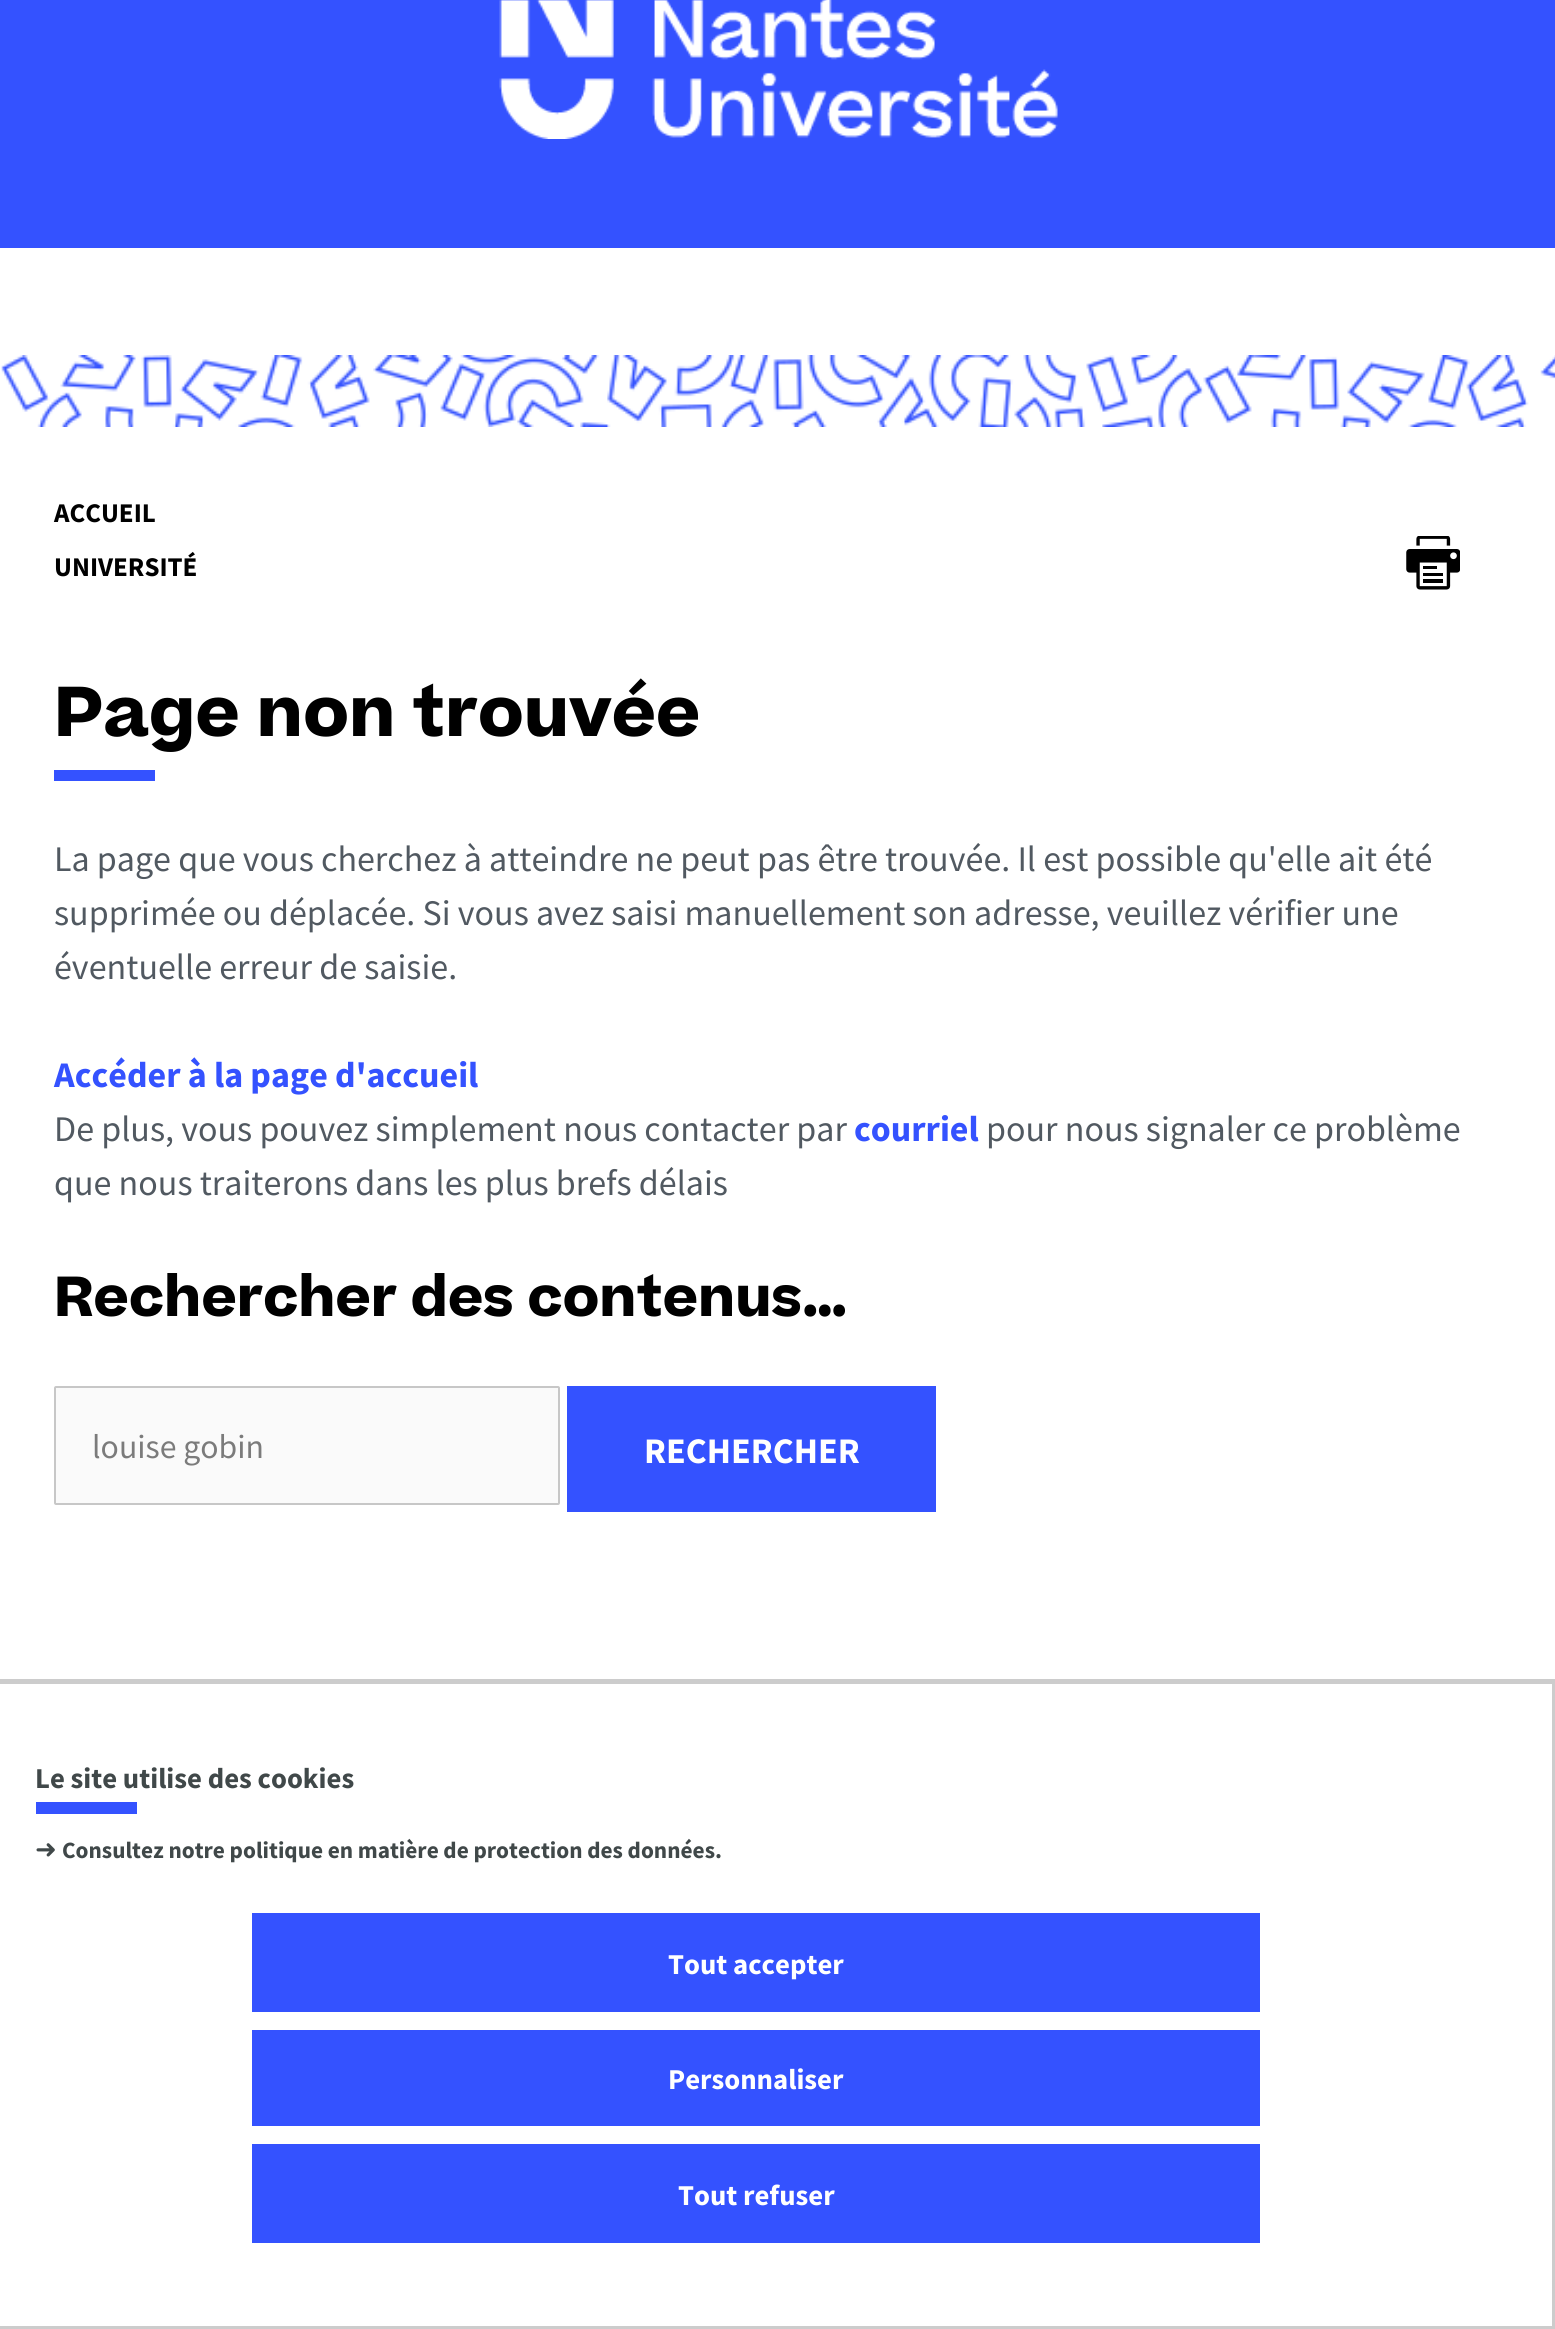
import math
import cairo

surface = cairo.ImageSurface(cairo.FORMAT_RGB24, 1555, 2329)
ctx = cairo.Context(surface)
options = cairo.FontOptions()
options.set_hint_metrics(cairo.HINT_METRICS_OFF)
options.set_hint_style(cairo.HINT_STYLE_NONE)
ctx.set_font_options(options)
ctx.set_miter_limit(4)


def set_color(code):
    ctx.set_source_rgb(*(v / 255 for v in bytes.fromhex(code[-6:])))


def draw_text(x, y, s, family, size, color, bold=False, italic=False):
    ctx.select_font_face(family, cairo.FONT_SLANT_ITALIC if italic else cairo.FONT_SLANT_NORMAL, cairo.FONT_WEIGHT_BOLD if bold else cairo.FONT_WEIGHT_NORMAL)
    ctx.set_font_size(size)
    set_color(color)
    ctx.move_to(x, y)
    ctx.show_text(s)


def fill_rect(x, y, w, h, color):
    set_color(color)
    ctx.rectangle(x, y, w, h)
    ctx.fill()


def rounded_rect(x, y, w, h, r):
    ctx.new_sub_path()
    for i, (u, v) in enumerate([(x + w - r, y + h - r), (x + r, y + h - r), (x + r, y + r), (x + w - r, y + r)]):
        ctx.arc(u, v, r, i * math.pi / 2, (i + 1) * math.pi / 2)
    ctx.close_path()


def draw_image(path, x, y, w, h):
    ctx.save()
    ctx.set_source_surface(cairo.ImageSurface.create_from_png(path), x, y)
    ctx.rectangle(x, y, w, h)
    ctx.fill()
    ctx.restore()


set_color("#ffffff")
ctx.paint()
fill_rect(0, 0, 1555, 248, "#3452ff")
draw_image("assets/img1.png", 499, 0, 559, 139)
draw_image("assets/img2.png", 1, 355, 1554, 72)
draw_text(54, 522, "ACCUEIL", "Source Sans Pro", 27, "#000000", bold=True)
draw_text(54, 576, "UNIVERSITÉ", "Source Sans Pro", 27, "#000000", bold=True)
draw_image("assets/img3.png", 1406, 536, 54, 54)
draw_text(54, 736, "Page non trouvée", "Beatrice", 67.5, "#000000", bold=True)
fill_rect(54, 770, 101, 11, "#3452ff")
draw_text(54, 871, "La page que vous cherchez à atteindre ne peut pas être trouvée. Il est possible qu'elle ait été", "Source Sans Pro", 36, "#515961")
draw_text(54, 925, "supprimée ou déplacée. Si vous avez saisi manuellement son adresse, veuillez vérifier une", "Source Sans Pro", 36, "#515961")
draw_text(54, 979, "éventuelle erreur de saisie.", "Source Sans Pro", 36, "#515961")
draw_text(54, 1087, "Accéder à la page d'accueil", "Source Sans Pro", 36, "#3452ff", bold=True)
draw_text(54, 1141, "De plus, vous pouvez simplement nous contacter par", "Source Sans Pro", 36, "#515961")
draw_text(854, 1141, "courriel", "Source Sans Pro", 36, "#3452ff", bold=True)
draw_text(986, 1141, "pour nous signaler ce problème", "Source Sans Pro", 36, "#515961")
draw_text(54, 1195, "que nous traiterons dans les plus brefs délais", "Source Sans Pro", 36, "#515961")
draw_text(54, 1316, "Rechercher des contenus…", "Beatrice", 54, "#000000", bold=True)
set_color("#fafafa")
rounded_rect(55, 1387, 504, 117, 1)
ctx.fill_preserve()
set_color("#c7c7c7")
ctx.stroke()
draw_text(92, 1458, "louise gobin", "Source Sans Pro", 33.75, "#7b7b7b")
fill_rect(567, 1386, 369, 126, "#3452ff")
draw_text(644, 1463, "RECHERCHER", "Source Sans Pro", 36, "#ffffff", bold=True)
ctx.rectangle(-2.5, 1681.5, 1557, 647)
set_color("#cccccc")
ctx.set_line_width(5)
ctx.stroke()
draw_text(35, 1788, "Le site utilise des cookies", "Source Sans Pro", 28.75, "#404849", bold=True)
fill_rect(36, 1802, 101, 12, "#3452ff")
draw_text(35, 1858, "➜", "DejaVu Sans", 26, "#404849")
draw_text(62, 1858, "Consultez notre politique en matière de protection des données.", "Source Sans Pro", 23.3, "#404849", bold=True)
fill_rect(252, 1913, 1008, 99, "#3452ff")
draw_text(668, 1974, "Tout accepter", "Source Sans Pro", 28.75, "#ffffff", bold=True)
fill_rect(252, 2030, 1008, 96, "#3452ff")
draw_text(668, 2089, "Personnaliser", "Source Sans Pro", 28.75, "#ffffff", bold=True)
fill_rect(252, 2144, 1008, 99, "#3452ff")
draw_text(678, 2205, "Tout refuser", "Source Sans Pro", 28.75, "#ffffff", bold=True)
surface.write_to_png("output.png")
